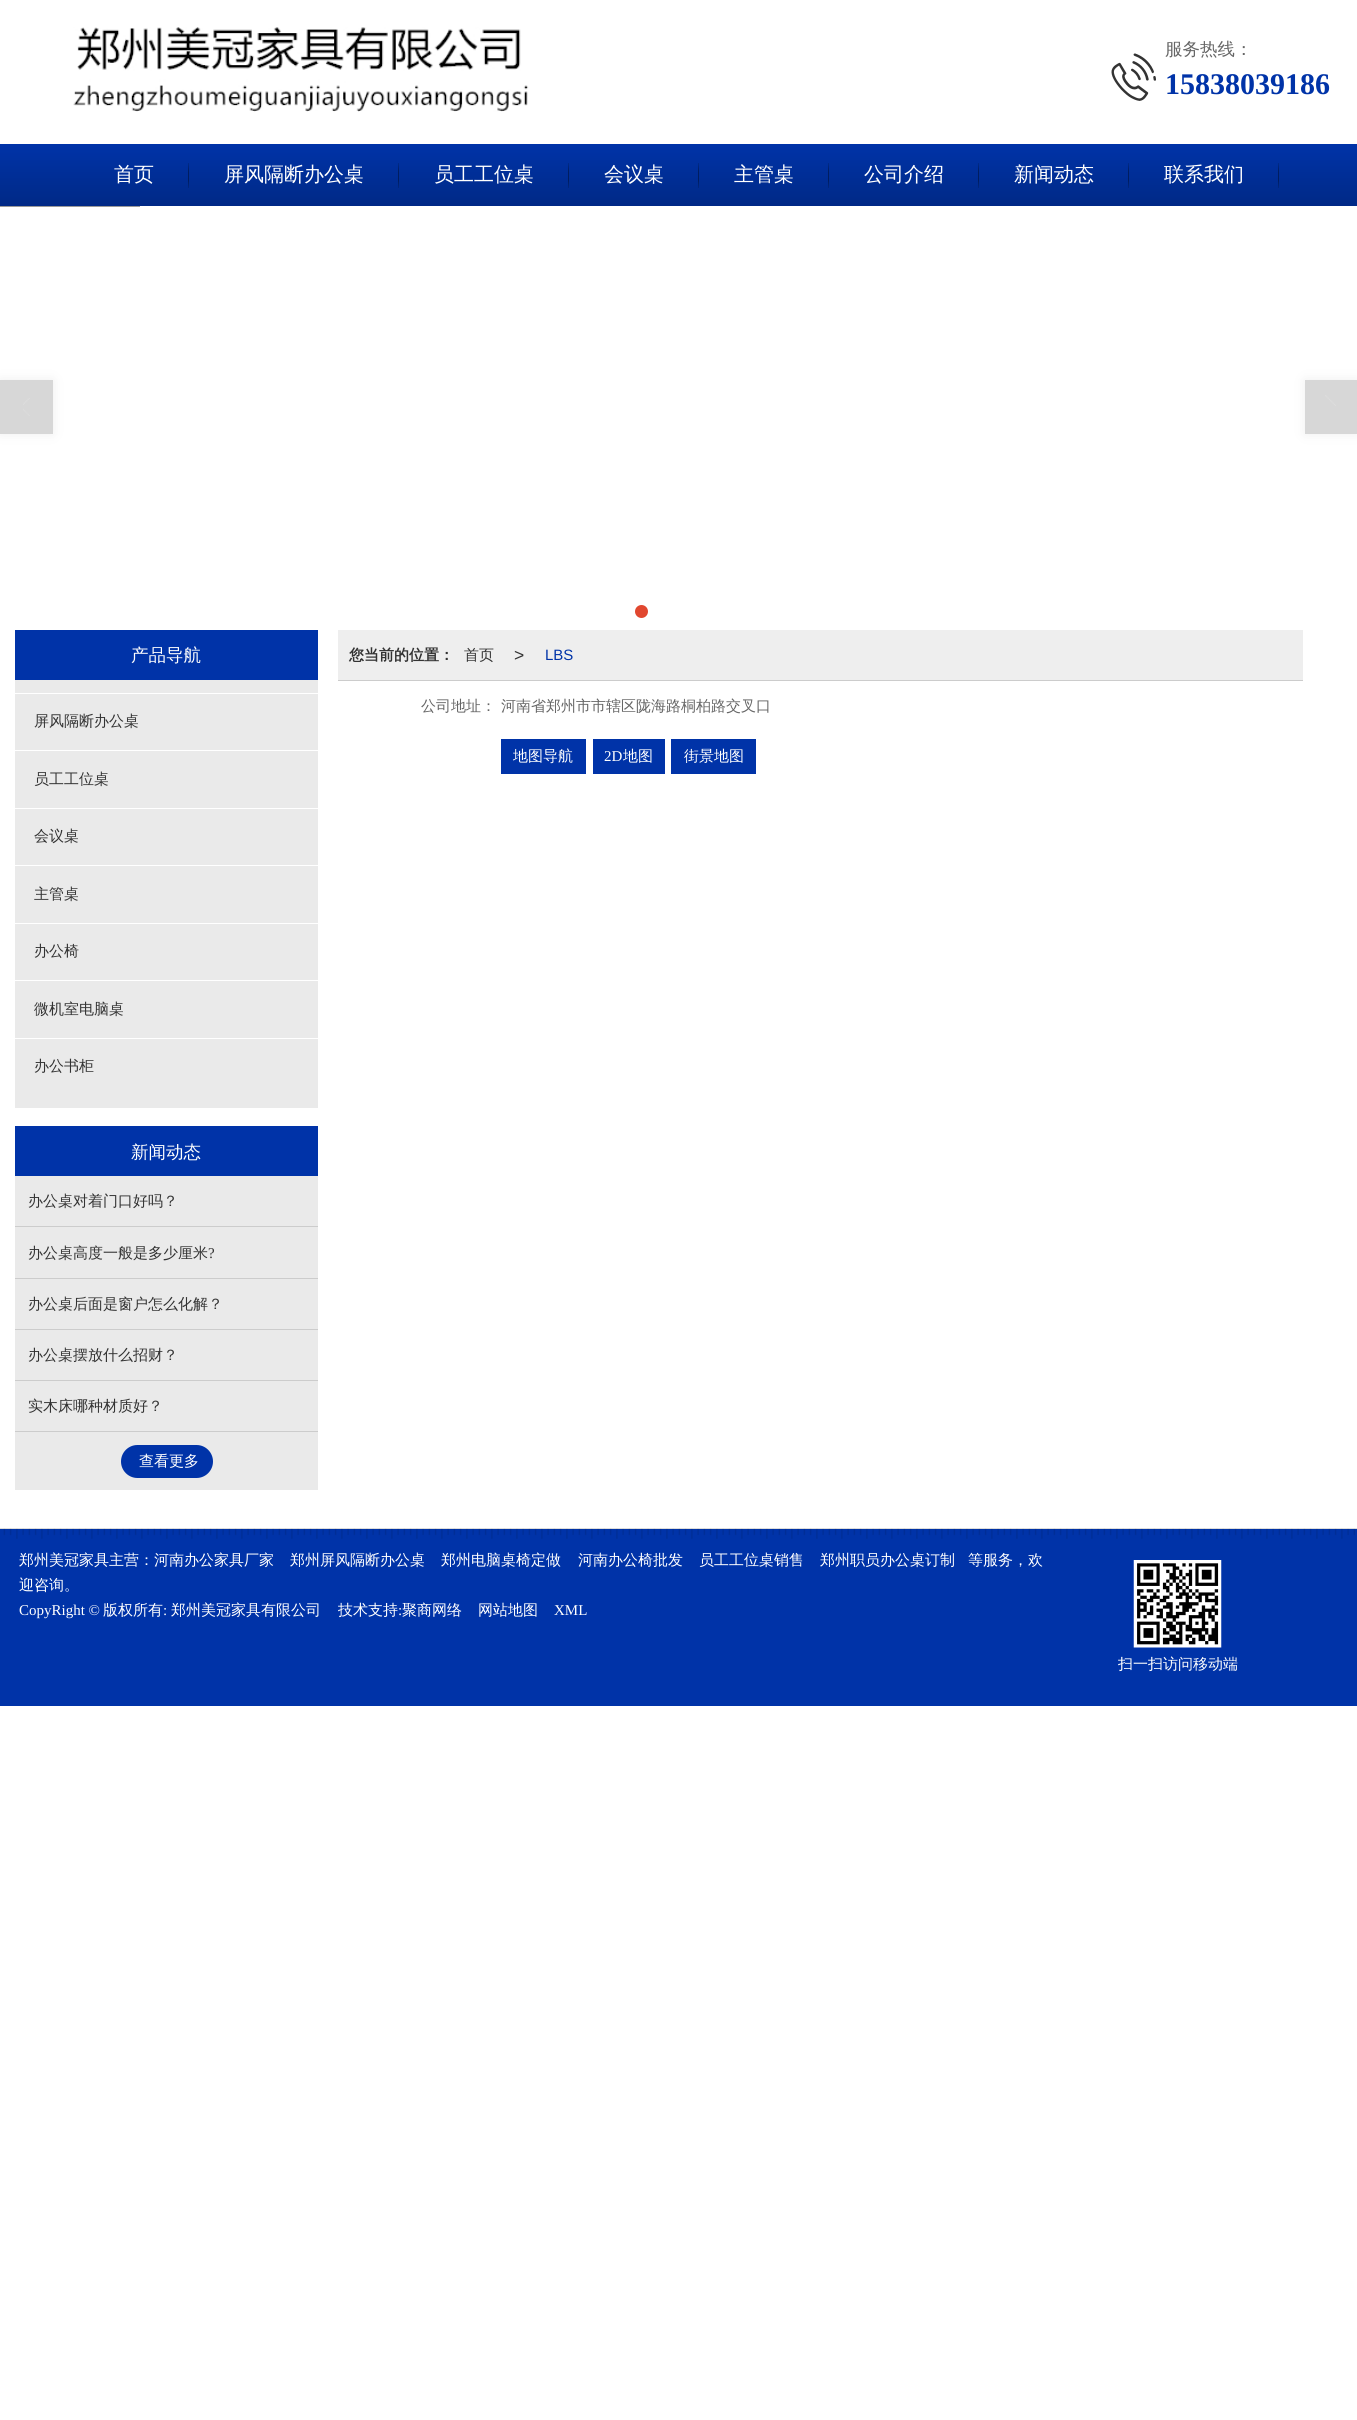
import math
import cairo

surface = cairo.ImageSurface(cairo.FORMAT_RGB24, 1357, 2420)
ctx = cairo.Context(surface)
options = cairo.FontOptions()
options.set_hint_metrics(cairo.HINT_METRICS_OFF)
options.set_hint_style(cairo.HINT_STYLE_NONE)
ctx.set_font_options(options)
ctx.set_miter_limit(4)


def set_color(code):
    ctx.set_source_rgb(*(v / 255 for v in bytes.fromhex(code[-6:])))


def draw_text(x, y, s, family, size, color, bold=False, italic=False):
    ctx.select_font_face(family, cairo.FONT_SLANT_ITALIC if italic else cairo.FONT_SLANT_NORMAL, cairo.FONT_WEIGHT_BOLD if bold else cairo.FONT_WEIGHT_NORMAL)
    ctx.set_font_size(size)
    set_color(color)
    ctx.move_to(x, y)
    ctx.show_text(s)


def fill_rect(x, y, w, h, color):
    set_color(color)
    ctx.rectangle(x, y, w, h)
    ctx.fill()


def rounded_rect(x, y, w, h, r):
    ctx.new_sub_path()
    for i, (u, v) in enumerate([(x + w - r, y + h - r), (x + r, y + h - r), (x + r, y + r), (x + w - r, y + r)]):
        ctx.arc(u, v, r, i * math.pi / 2, (i + 1) * math.pi / 2)
    ctx.close_path()


def draw_shadow(x, y, w, h, r, blur, alpha):
    ctx.push_group_with_content(cairo.CONTENT_ALPHA)
    ctx.set_operator(cairo.OPERATOR_SOURCE)
    for i in range(15, -16, -2):
        e = blur * i / 6
        if min(w, h) + 2 * e > 0:
            ctx.set_source_rgba(0, 0, 0, alpha * math.erfc((i - 1) / 8.5) / 2)
            rounded_rect(x - e, y - e, w + 2 * e, h + 2 * e, max(0, min(r + e + blur * .6, min(w, h) / 2 + e)))
            ctx.fill()
    ctx.mask(ctx.pop_group())


def draw_image(path, x, y, w, h):
    ctx.save()
    ctx.set_source_surface(cairo.ImageSurface.create_from_png(path), x, y)
    ctx.rectangle(x, y, w, h)
    ctx.fill()
    ctx.restore()


set_color("#ffffff")
ctx.paint()
draw_image("assets/img1.png", 73, 27, 456, 85)
draw_image("assets/img2.png", 1111, 53, 45, 48)
draw_text(1165, 55, "服务热线：", "WenQuanYi Zen Hei Medium", 17.5, "#666666")
draw_text(1165, 94, "15838039186", "Liberation Serif", 30, "#0033a8", bold=True)
gradient = cairo.LinearGradient(679, 144, 679, 206)
gradient.add_color_stop_rgba(0, 0, 0.2, 0.659, 1)
gradient.add_color_stop_rgba(1, 0, 0.161, 0.525, 1)
ctx.set_source(gradient)
ctx.rectangle(0, 144, 1357, 62)
ctx.fill()
draw_text(114, 181, "首页", "WenQuanYi Zen Hei Medium", 20, "#ffffff")
gradient = cairo.LinearGradient(188, 163, 188, 188)
gradient.add_color_stop_rgba(0, 0, 0, 0, 0.12)
gradient.add_color_stop_rgba(0.3, 0, 0, 0, 0.35)
gradient.add_color_stop_rgba(0.31, 0, 0, 0, 0.36)
gradient.add_color_stop_rgba(0.7, 0, 0, 0, 0.36)
gradient.add_color_stop_rgba(1, 0, 0, 0, 0.12)
ctx.set_source(gradient)
ctx.rectangle(188, 163, 1, 25)
ctx.fill()
draw_text(224, 181, "屏风隔断办公桌", "WenQuanYi Zen Hei Medium", 20, "#ffffff")
gradient = cairo.LinearGradient(398, 163, 398, 188)
gradient.add_color_stop_rgba(0, 0, 0, 0, 0.12)
gradient.add_color_stop_rgba(0.3, 0, 0, 0, 0.35)
gradient.add_color_stop_rgba(0.31, 0, 0, 0, 0.36)
gradient.add_color_stop_rgba(0.7, 0, 0, 0, 0.36)
gradient.add_color_stop_rgba(1, 0, 0, 0, 0.12)
ctx.set_source(gradient)
ctx.rectangle(398, 163, 1, 25)
ctx.fill()
draw_text(434, 181, "员工工位桌", "WenQuanYi Zen Hei Medium", 20, "#ffffff")
gradient = cairo.LinearGradient(568, 163, 568, 188)
gradient.add_color_stop_rgba(0, 0, 0, 0, 0.12)
gradient.add_color_stop_rgba(0.3, 0, 0, 0, 0.35)
gradient.add_color_stop_rgba(0.31, 0, 0, 0, 0.36)
gradient.add_color_stop_rgba(0.7, 0, 0, 0, 0.36)
gradient.add_color_stop_rgba(1, 0, 0, 0, 0.12)
ctx.set_source(gradient)
ctx.rectangle(568, 163, 1, 25)
ctx.fill()
draw_text(604, 181, "会议桌", "WenQuanYi Zen Hei Medium", 20, "#ffffff")
gradient = cairo.LinearGradient(698, 163, 698, 188)
gradient.add_color_stop_rgba(0, 0, 0, 0, 0.12)
gradient.add_color_stop_rgba(0.3, 0, 0, 0, 0.35)
gradient.add_color_stop_rgba(0.31, 0, 0, 0, 0.36)
gradient.add_color_stop_rgba(0.7, 0, 0, 0, 0.36)
gradient.add_color_stop_rgba(1, 0, 0, 0, 0.12)
ctx.set_source(gradient)
ctx.rectangle(698, 163, 1, 25)
ctx.fill()
draw_text(734, 181, "主管桌", "WenQuanYi Zen Hei Medium", 20, "#ffffff")
gradient = cairo.LinearGradient(828, 163, 828, 188)
gradient.add_color_stop_rgba(0, 0, 0, 0, 0.12)
gradient.add_color_stop_rgba(0.3, 0, 0, 0, 0.35)
gradient.add_color_stop_rgba(0.31, 0, 0, 0, 0.36)
gradient.add_color_stop_rgba(0.7, 0, 0, 0, 0.36)
gradient.add_color_stop_rgba(1, 0, 0, 0, 0.12)
ctx.set_source(gradient)
ctx.rectangle(828, 163, 1, 25)
ctx.fill()
draw_text(864, 181, "公司介绍", "WenQuanYi Zen Hei Medium", 20, "#ffffff")
gradient = cairo.LinearGradient(978, 163, 978, 188)
gradient.add_color_stop_rgba(0, 0, 0, 0, 0.12)
gradient.add_color_stop_rgba(0.3, 0, 0, 0, 0.35)
gradient.add_color_stop_rgba(0.31, 0, 0, 0, 0.36)
gradient.add_color_stop_rgba(0.7, 0, 0, 0, 0.36)
gradient.add_color_stop_rgba(1, 0, 0, 0, 0.12)
ctx.set_source(gradient)
ctx.rectangle(978, 163, 1, 25)
ctx.fill()
draw_text(1014, 181, "新闻动态", "WenQuanYi Zen Hei Medium", 20, "#ffffff")
gradient = cairo.LinearGradient(1128, 163, 1128, 188)
gradient.add_color_stop_rgba(0, 0, 0, 0, 0.12)
gradient.add_color_stop_rgba(0.3, 0, 0, 0, 0.35)
gradient.add_color_stop_rgba(0.31, 0, 0, 0, 0.36)
gradient.add_color_stop_rgba(0.7, 0, 0, 0, 0.36)
gradient.add_color_stop_rgba(1, 0, 0, 0, 0.12)
ctx.set_source(gradient)
ctx.rectangle(1128, 163, 1, 25)
ctx.fill()
draw_text(1164, 181, "联系我们", "WenQuanYi Zen Hei Medium", 20, "#ffffff")
gradient = cairo.LinearGradient(1278, 163, 1278, 188)
gradient.add_color_stop_rgba(0, 0, 0, 0, 0.12)
gradient.add_color_stop_rgba(0.3, 0, 0, 0, 0.35)
gradient.add_color_stop_rgba(0.31, 0, 0, 0, 0.36)
gradient.add_color_stop_rgba(0.7, 0, 0, 0, 0.36)
gradient.add_color_stop_rgba(1, 0, 0, 0, 0.12)
ctx.set_source(gradient)
ctx.rectangle(1278, 163, 1, 25)
ctx.fill()
fill_rect(0, 206, 140, 1, "#999999")
set_color("#cccccc")
draw_shadow(0, 380, 53, 54, 0, 6, 0.3)
fill_rect(0, 380, 53, 54, "#d7d7d7")
draw_image("assets/img3.png", 23, 398, 7, 18)
set_color("#cccccc")
draw_shadow(1305, 380, 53, 54, 0, 6, 0.3)
fill_rect(1305, 380, 52, 54, "#d7d7d7")
draw_image("assets/img4.png", 1325, 395, 11, 11)
set_color("#e1472f")
ctx.arc(641.5, 611.5, 6.5, 0, 2 * math.pi)
ctx.fill()
fill_rect(15, 630, 303, 50, "#0033a8")
draw_text(131, 661, "产品导航", "WenQuanYi Zen Hei Medium", 17.5, "#ffffff")
fill_rect(15, 680, 303, 428, "#eaeaea")
fill_rect(15, 693, 303, 1, "#ffffff")
draw_text(34, 726, "屏风隔断办公桌", "WenQuanYi Zen Hei Medium", 15, "#333333")
fill_rect(15, 750, 303, 1, "#ffffff")
draw_text(34, 784, "员工工位桌", "WenQuanYi Zen Hei Medium", 15, "#333333")
fill_rect(15, 808, 303, 1, "#ffffff")
draw_text(34, 841, "会议桌", "WenQuanYi Zen Hei Medium", 15, "#333333")
fill_rect(15, 865, 303, 1, "#ffffff")
draw_text(34, 899, "主管桌", "WenQuanYi Zen Hei Medium", 15, "#333333")
fill_rect(15, 923, 303, 1, "#ffffff")
draw_text(34, 956, "办公椅", "WenQuanYi Zen Hei Medium", 15, "#333333")
fill_rect(15, 980, 303, 1, "#ffffff")
draw_text(34, 1014, "微机室电脑桌", "WenQuanYi Zen Hei Medium", 15, "#333333")
fill_rect(15, 1038, 303, 1, "#ffffff")
draw_text(34, 1071, "办公书柜", "WenQuanYi Zen Hei Medium", 15, "#333333")
fill_rect(15, 1126, 303, 50, "#0033a8")
draw_text(131, 1158, "新闻动态", "WenQuanYi Zen Hei Medium", 17.5, "#ffffff")
fill_rect(15, 1176, 303, 314, "#eaeaea")
fill_rect(15, 1226, 303, 1, "#cccccc")
draw_text(28, 1206, "办公桌对着门口好吗？", "WenQuanYi Zen Hei Medium", 15, "#333333")
fill_rect(15, 1278, 303, 1, "#cccccc")
draw_text(28, 1258, "办公桌高度一般是多少厘米", "WenQuanYi Zen Hei Medium", 15, "#333333")
draw_text(208, 1258, "?", "Liberation Serif", 15, "#333333")
fill_rect(15, 1329, 303, 1, "#cccccc")
draw_text(28, 1309, "办公桌后面是窗户怎么化解？", "WenQuanYi Zen Hei Medium", 15, "#333333")
fill_rect(15, 1380, 303, 1, "#cccccc")
draw_text(28, 1360, "办公桌摆放什么招财？", "WenQuanYi Zen Hei Medium", 15, "#333333")
fill_rect(15, 1431, 303, 1, "#cccccc")
draw_text(28, 1411, "实木床哪种材质好？", "WenQuanYi Zen Hei Medium", 15, "#333333")
set_color("#0033a8")
rounded_rect(121, 1445, 92, 33, 16.5)
ctx.fill()
draw_text(139, 1466, "查看更多", "WenQuanYi Zen Hei Medium", 15, "#ffffff")
fill_rect(338, 630, 965, 50, "#eeeeee")
fill_rect(338, 680, 965, 1, "#cccccc")
draw_text(349, 660, "您当前的位置：", "WenQuanYi Zen Hei", 15, "#333333", bold=True)
draw_text(464, 660, "首页", "WenQuanYi Zen Hei Medium", 15, "#333333")
draw_text(514, 661, ">", "Liberation Sans", 17.5, "#333333")
draw_text(545, 660, "LBS", "Liberation Sans", 15, "#0033a8")
draw_text(421, 711, "公司地址：", "WenQuanYi Zen Hei Medium", 15, "#666666")
draw_text(501, 711, "河南省郑州市市辖区陇海路桐柏路交叉口", "WenQuanYi Zen Hei Medium", 15, "#666666")
fill_rect(501, 739, 85, 35, "#0033a8")
draw_text(513, 761, "地图导航", "WenQuanYi Zen Hei Medium", 15, "#ffffff")
fill_rect(593, 739, 72, 35, "#0033a8")
draw_text(604, 761, "2D", "Liberation Serif", 15, "#ffffff")
draw_text(623, 761, "地图", "WenQuanYi Zen Hei Medium", 15, "#ffffff")
fill_rect(671, 739, 85, 35, "#0033a8")
draw_text(684, 761, "街景地图", "WenQuanYi Zen Hei Medium", 15, "#ffffff")
fill_rect(0, 1528, 1357, 1, "#dddddd")
fill_rect(0, 1529, 1357, 177, "#0033a8")
draw_image("assets/img5.png", 3, 1528, 1352, 11)
draw_text(19, 1565, "郑州美冠家具主营：河南办公家具厂家", "WenQuanYi Zen Hei Medium", 15, "#ffffff")
draw_text(290, 1565, "郑州屏风隔断办公桌", "WenQuanYi Zen Hei Medium", 15, "#ffffff")
draw_text(441, 1565, "郑州电脑桌椅定做", "WenQuanYi Zen Hei Medium", 15, "#ffffff")
draw_text(578, 1565, "河南办公椅批发", "WenQuanYi Zen Hei Medium", 15, "#ffffff")
draw_text(699, 1565, "员工工位桌销售", "WenQuanYi Zen Hei Medium", 15, "#ffffff")
draw_text(820, 1565, "郑州职员办公桌订制", "WenQuanYi Zen Hei Medium", 15, "#ffffff")
draw_text(968, 1565, "等服务，欢", "WenQuanYi Zen Hei Medium", 15, "#ffffff")
draw_text(19, 1590, "迎咨询。", "WenQuanYi Zen Hei Medium", 15, "#ffffff")
draw_text(19, 1615, "CopyRight ©", "Liberation Serif", 15, "#ffffff")
draw_text(103, 1615, "版权所有", "WenQuanYi Zen Hei Medium", 15, "#ffffff")
draw_text(163, 1615, ":", "Liberation Serif", 15, "#ffffff")
draw_text(171, 1615, "郑州美冠家具有限公司", "WenQuanYi Zen Hei Medium", 15, "#ffffff")
draw_text(338, 1615, "技术支持", "WenQuanYi Zen Hei Medium", 15, "#ffffff")
draw_text(398, 1615, ":", "Liberation Serif", 15, "#ffffff")
draw_text(402, 1615, "聚商网络", "WenQuanYi Zen Hei Medium", 15, "#ffffff")
draw_text(478, 1615, "网站地图", "WenQuanYi Zen Hei Medium", 15, "#ffffff")
draw_text(554, 1615, "XML", "Liberation Serif", 15, "#ffffff")
draw_image("assets/img6.png", 1133, 1560, 89, 88)
draw_text(1118, 1669, "扫一扫访问移动端", "WenQuanYi Zen Hei Medium", 15, "#ffffff")
surface.write_to_png("output.png")
